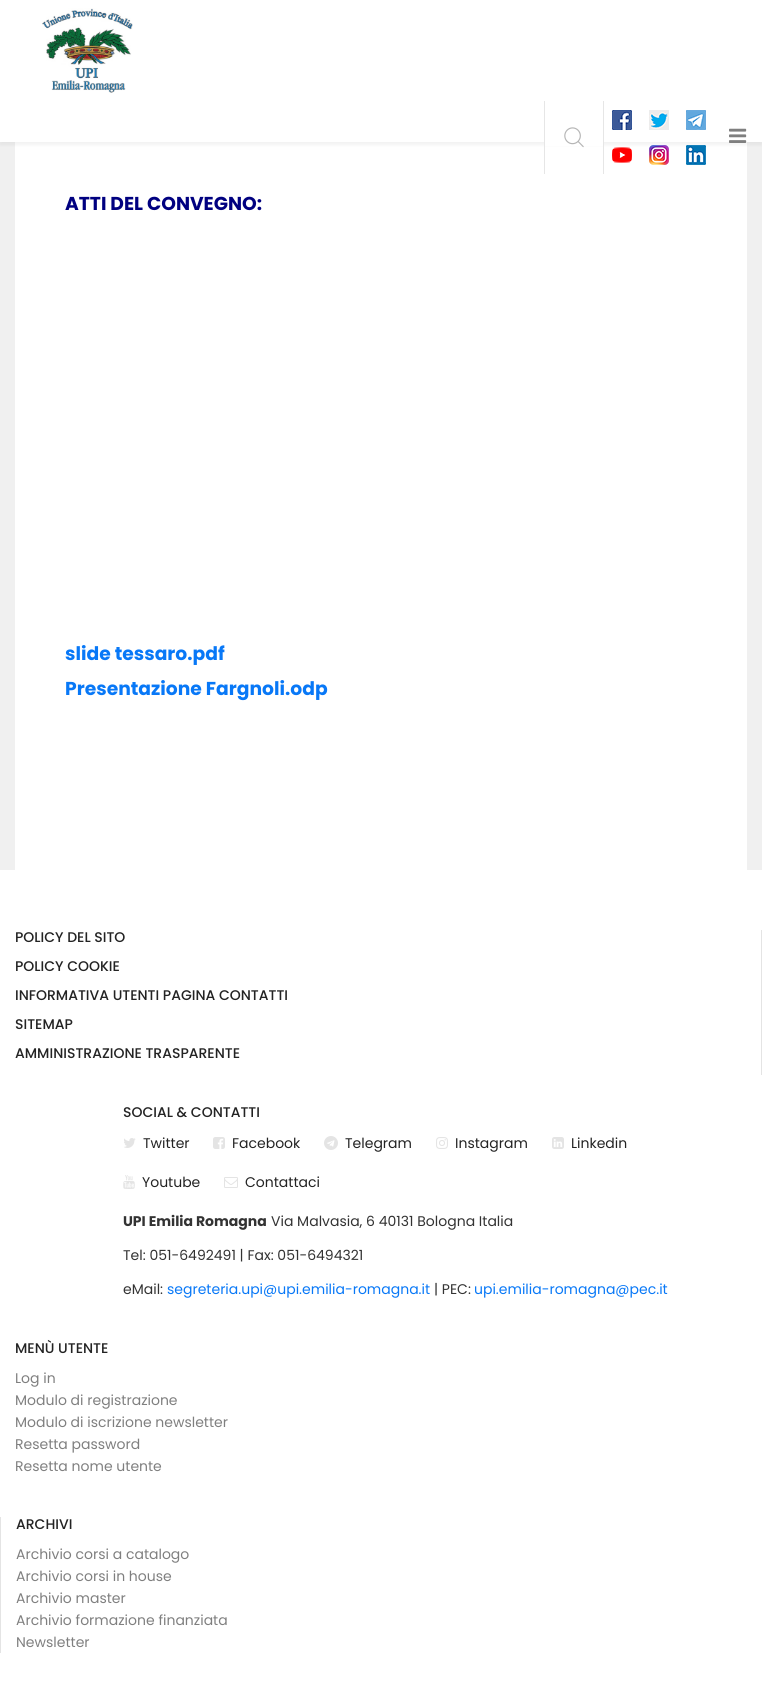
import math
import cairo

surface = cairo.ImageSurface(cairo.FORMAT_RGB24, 762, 1702)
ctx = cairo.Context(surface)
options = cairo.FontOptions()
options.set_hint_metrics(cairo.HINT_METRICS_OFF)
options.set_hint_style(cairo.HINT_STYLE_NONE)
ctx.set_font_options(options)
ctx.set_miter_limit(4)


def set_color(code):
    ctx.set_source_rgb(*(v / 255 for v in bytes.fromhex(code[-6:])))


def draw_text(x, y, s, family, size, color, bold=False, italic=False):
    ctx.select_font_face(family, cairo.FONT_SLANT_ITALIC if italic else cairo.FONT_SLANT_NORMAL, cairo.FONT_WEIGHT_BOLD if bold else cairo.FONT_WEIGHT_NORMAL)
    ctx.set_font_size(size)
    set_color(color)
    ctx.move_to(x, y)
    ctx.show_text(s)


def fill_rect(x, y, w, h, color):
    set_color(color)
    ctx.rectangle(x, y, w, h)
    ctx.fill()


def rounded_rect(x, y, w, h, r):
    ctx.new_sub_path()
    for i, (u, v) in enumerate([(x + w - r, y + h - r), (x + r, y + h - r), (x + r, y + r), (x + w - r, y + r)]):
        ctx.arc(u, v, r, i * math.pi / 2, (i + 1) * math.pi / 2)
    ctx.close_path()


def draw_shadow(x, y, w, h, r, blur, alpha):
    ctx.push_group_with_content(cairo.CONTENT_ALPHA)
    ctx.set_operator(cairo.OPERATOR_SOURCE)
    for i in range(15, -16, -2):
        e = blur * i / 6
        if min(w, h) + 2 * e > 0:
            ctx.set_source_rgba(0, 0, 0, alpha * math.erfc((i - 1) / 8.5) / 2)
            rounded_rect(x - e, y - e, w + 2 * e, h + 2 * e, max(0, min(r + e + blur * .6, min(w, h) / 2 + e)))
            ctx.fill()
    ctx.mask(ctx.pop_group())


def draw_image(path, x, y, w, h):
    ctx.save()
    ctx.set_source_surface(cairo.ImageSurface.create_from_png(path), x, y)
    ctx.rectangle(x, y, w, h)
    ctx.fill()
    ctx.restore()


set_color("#f0f0f0")
ctx.paint()
fill_rect(15, 142, 732, 728, "#ffffff")
set_color("#000000")
draw_shadow(0, 3, 762, 142, 0, 1.5, 0.05)
fill_rect(0, 0, 762, 142, "#ffffff")
draw_image("assets/img1.png", 42, 8, 91, 85)
fill_rect(545, 142, 58, 4, "#ffffff")
fill_rect(603, 101, 1, 73, "#e6e6e6")
fill_rect(544, 101, 1, 73, "#e6e6e6")
draw_image("assets/img2.png", 564, 127, 20, 21)
draw_image("assets/img3.png", 612, 110, 20, 20)
draw_image("assets/img4.png", 649, 110, 20, 20)
draw_image("assets/img5.png", 686, 110, 20, 20)
draw_image("assets/img6.png", 612, 147, 20, 16)
draw_image("assets/img7.png", 649, 145, 20, 20)
draw_image("assets/img8.png", 686, 145, 20, 20)
draw_image("assets/img9.png", 729, 128, 18, 15)
draw_text(65, 210, "ATTI DEL CONVEGNO:", "Poppins", 18.7, "#000080", bold=True)
draw_text(65, 660, "slide tessaro.pdf", "Poppins", 18.7, "#0878f7", bold=True)
draw_text(65, 695, "Presentazione Fargnoli.odp", "Poppins", 18.7, "#0878f7", bold=True)
fill_rect(0, 870, 762, 832, "#ffffff")
fill_rect(761, 930, 1, 145, "#e4e4e4")
draw_text(15, 942, "POLICY DEL SITO", "Poppins Medium", 14, "#232323")
draw_text(15, 971, "POLICY COOKIE", "Poppins Medium", 14, "#232323")
draw_text(15, 1000, "INFORMATIVA UTENTI PAGINA CONTATTI", "Poppins Medium", 14, "#232323")
draw_text(15, 1029, "SITEMAP", "Poppins Medium", 14, "#232323")
draw_text(15, 1058, "AMMINISTRAZIONE TRASPARENTE", "Poppins Medium", 14, "#232323")
draw_text(123, 1117, "SOCIAL & CONTATTI", "Poppins Medium", 14, "#232323")
draw_image("assets/img10.png", 124, 1138, 12, 10)
draw_text(143, 1148, "Twitter", "Poppins", 14, "#232323")
draw_image("assets/img11.png", 213, 1137, 12, 12)
draw_text(232, 1148, "Facebook", "Poppins", 14, "#232323")
draw_image("assets/img12.png", 324, 1136, 14, 14)
draw_text(345, 1148, "Telegram", "Poppins", 14, "#232323")
draw_image("assets/img13.png", 436, 1137, 12, 12)
draw_text(455, 1148, "Instagram", "Poppins", 14, "#232323")
draw_image("assets/img14.png", 552, 1137, 12, 12)
draw_text(571, 1148, "Linkedin", "Poppins", 14, "#232323")
draw_image("assets/img15.png", 123, 1175, 12, 14)
draw_text(142, 1187, "Youtube", "Poppins", 14, "#232323")
draw_image("assets/img16.png", 224, 1177, 14, 11)
draw_text(245, 1187, "Contattaci", "Poppins", 14, "#232323")
draw_text(123, 1226, "UPI Emilia Romagna", "Poppins", 14, "#333333", bold=True)
draw_text(271, 1226, "Via Malvasia, 6 40131 Bologna Italia", "Poppins", 14, "#333333")
draw_text(123, 1260, "Tel: 051-6492491 | Fax: 051-6494321", "Poppins", 14, "#333333")
draw_text(123, 1294, "eMail:", "Poppins", 14, "#333333")
draw_text(167, 1294, "segreteria.upi@upi.emilia-romagna.it", "Poppins", 14, "#0878f7")
draw_text(434, 1294, "| PEC:", "Poppins", 14, "#333333")
draw_text(474, 1294, "upi.emilia-romagna@pec.it", "Poppins", 14, "#0878f7")
draw_text(15, 1353, "MENÙ UTENTE", "Poppins Medium", 14, "#232323")
draw_text(15, 1383, "Log in", "Poppins", 14, "#7f7f7f")
draw_text(15, 1405, "Modulo di registrazione", "Poppins", 14, "#7f7f7f")
draw_text(15, 1427, "Modulo di iscrizione newsletter", "Poppins", 14, "#7f7f7f")
draw_text(15, 1449, "Resetta password", "Poppins", 14, "#7f7f7f")
draw_text(15, 1471, "Resetta nome utente", "Poppins", 14, "#7f7f7f")
fill_rect(0, 1517, 1, 136, "#e4e4e4")
draw_text(16, 1529, "ARCHIVI", "Poppins Medium", 14, "#232323")
draw_text(16, 1559, "Archivio corsi a catalogo", "Poppins", 14, "#7f7f7f")
draw_text(16, 1581, "Archivio corsi in house", "Poppins", 14, "#7f7f7f")
draw_text(16, 1603, "Archivio master", "Poppins", 14, "#7f7f7f")
draw_text(16, 1625, "Archivio formazione finanziata", "Poppins", 14, "#7f7f7f")
draw_text(16, 1647, "Newsletter", "Poppins", 14, "#7f7f7f")
surface.write_to_png("output.png")
